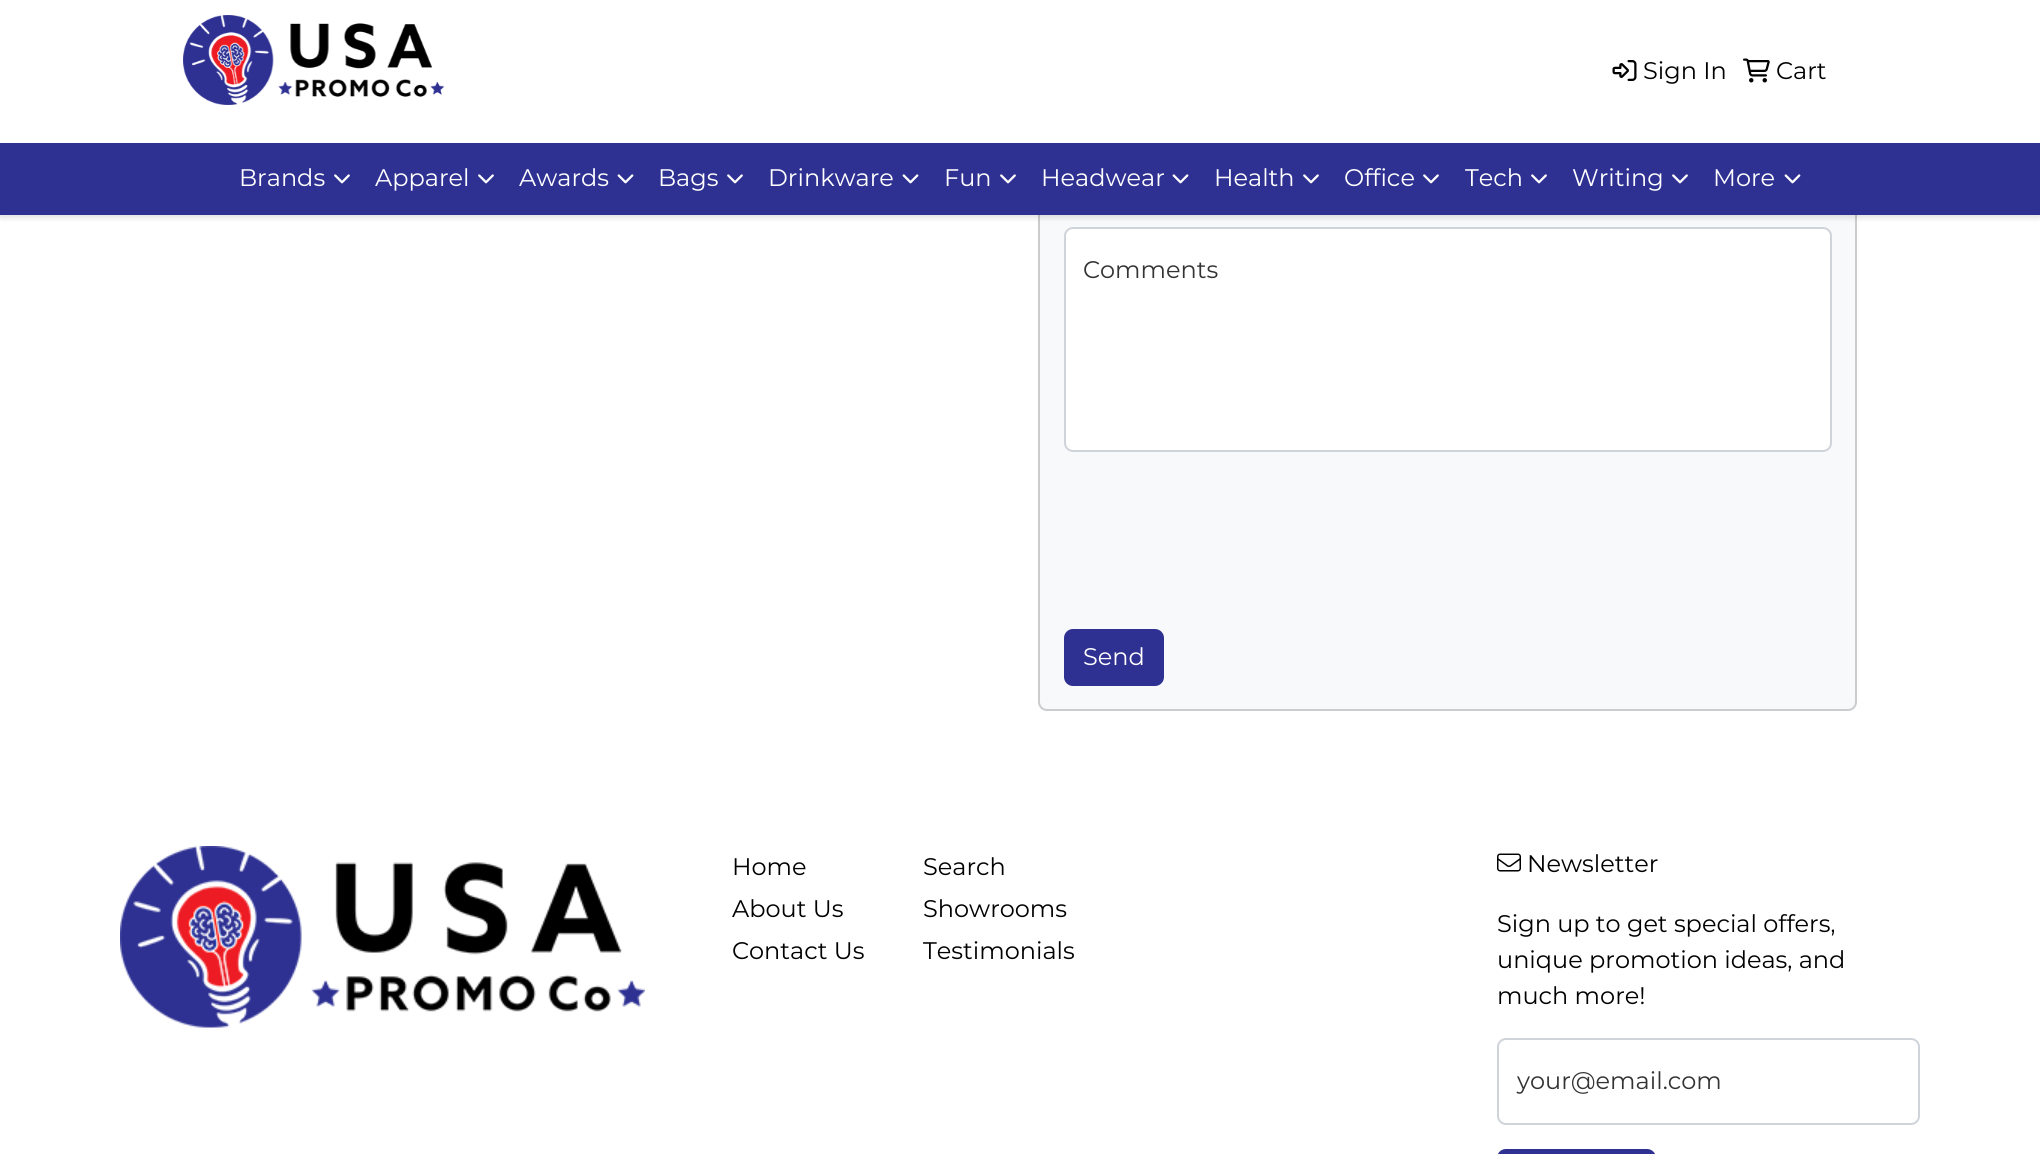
import math
import cairo

surface = cairo.ImageSurface(cairo.FORMAT_RGB24, 2040, 1154)
ctx = cairo.Context(surface)
options = cairo.FontOptions()
options.set_hint_metrics(cairo.HINT_METRICS_OFF)
options.set_hint_style(cairo.HINT_STYLE_NONE)
ctx.set_font_options(options)
ctx.set_miter_limit(4)


def set_color(code):
    ctx.set_source_rgb(*(v / 255 for v in bytes.fromhex(code[-6:])))


def draw_text(x, y, s, family, size, color, bold=False, italic=False):
    ctx.select_font_face(family, cairo.FONT_SLANT_ITALIC if italic else cairo.FONT_SLANT_NORMAL, cairo.FONT_WEIGHT_BOLD if bold else cairo.FONT_WEIGHT_NORMAL)
    ctx.set_font_size(size)
    set_color(color)
    ctx.move_to(x, y)
    ctx.show_text(s)


def fill_rect(x, y, w, h, color):
    set_color(color)
    ctx.rectangle(x, y, w, h)
    ctx.fill()


def rounded_rect(x, y, w, h, r):
    ctx.new_sub_path()
    for i, (u, v) in enumerate([(x + w - r, y + h - r), (x + r, y + h - r), (x + r, y + r), (x + w - r, y + r)]):
        ctx.arc(u, v, r, i * math.pi / 2, (i + 1) * math.pi / 2)
    ctx.close_path()


def draw_shadow(x, y, w, h, r, blur, alpha):
    ctx.push_group_with_content(cairo.CONTENT_ALPHA)
    ctx.set_operator(cairo.OPERATOR_SOURCE)
    for i in range(15, -16, -2):
        e = blur * i / 6
        if min(w, h) + 2 * e > 0:
            ctx.set_source_rgba(0, 0, 0, alpha * math.erfc((i - 1) / 8.5) / 2)
            rounded_rect(x - e, y - e, w + 2 * e, h + 2 * e, max(0, min(r + e + blur * .6, min(w, h) / 2 + e)))
            ctx.fill()
    ctx.mask(ctx.pop_group())


def draw_image(path, x, y, w, h):
    ctx.save()
    ctx.set_source_surface(cairo.ImageSurface.create_from_png(path), x, y)
    ctx.rectangle(x, y, w, h)
    ctx.fill()
    ctx.restore()


set_color("#ffffff")
ctx.paint()
set_color("#f8f9fa")
rounded_rect(1038, -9, 819, 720, 9)
ctx.fill()
rounded_rect(1039, -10, 817, 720, 8)
ctx.set_source_rgba(0, 0, 0, 0.18)
ctx.stroke()
set_color("#ffffff")
rounded_rect(1065, 228, 766, 223, 8)
ctx.fill_preserve()
set_color("#ced4da")
ctx.stroke()
set_color("#000000")
draw_shadow(0, 0, 2040, 215, 0, 4, 0.1)
fill_rect(0, 0, 2040, 143, "#ffffff")
draw_image("assets/img1.png", 183, 15, 261, 90)
draw_image("assets/img2.png", 1612, 60, 25, 21)
draw_text(1643, 79, "Sign In", "Montserrat", 24, "#000000")
draw_image("assets/img3.png", 1743, 58, 27, 25)
draw_text(1776, 79, "Cart", "Montserrat", 24, "#000000")
set_color("#000000")
draw_shadow(0, 146, 2040, 72, 0, 3, 0.07)
fill_rect(0, 143, 2040, 72, "#2e3192")
draw_text(239, 186, "Brands", "Montserrat", 24, "#ffffff")
draw_image("assets/img4.png", 334, 174, 16, 10)
draw_text(375, 186, "Apparel", "Montserrat", 24, "#ffffff")
draw_image("assets/img4.png", 478, 174, 16, 10)
draw_text(519, 186, "Awards", "Montserrat", 24, "#ffffff")
draw_image("assets/img5.png", 617, 174, 17, 10)
draw_text(658, 186, "Bags", "Montserrat", 24, "#ffffff")
draw_image("assets/img4.png", 727, 174, 16, 10)
draw_text(768, 186, "Drinkware", "Montserrat", 24, "#ffffff")
draw_image("assets/img5.png", 902, 174, 17, 10)
draw_text(944, 186, "Fun", "Montserrat", 24, "#ffffff")
draw_image("assets/img4.png", 1000, 174, 16, 10)
draw_text(1041, 186, "Headwear", "Montserrat", 24, "#ffffff")
draw_image("assets/img5.png", 1172, 174, 17, 10)
draw_text(1214, 186, "Health", "Montserrat", 24, "#ffffff")
draw_image("assets/img4.png", 1303, 174, 16, 10)
draw_text(1344, 186, "Office", "Montserrat", 24, "#ffffff")
draw_image("assets/img4.png", 1423, 174, 16, 10)
draw_text(1465, 186, "Tech", "Montserrat", 24, "#ffffff")
draw_image("assets/img4.png", 1531, 174, 16, 10)
draw_text(1572, 186, "Writing", "Montserrat", 24, "#ffffff")
draw_image("assets/img4.png", 1672, 174, 16, 10)
draw_text(1713, 186, "More", "Montserrat", 24, "#ffffff")
draw_image("assets/img5.png", 1784, 174, 17, 10)
draw_text(1083, 278, "Comments", "Montserrat", 24, "#333333")
set_color("#2e3192")
rounded_rect(1065, 630, 98, 55, 8)
ctx.fill_preserve()
ctx.stroke()
draw_text(1083, 665, "Send", "Montserrat", 24, "#ffffff")
draw_image("assets/img6.png", 120, 846, 525, 182)
draw_text(732, 875, "Home", "Montserrat", 24, "#000000")
draw_text(732, 917, "About Us", "Montserrat", 24, "#000000")
draw_text(732, 959, "Contact Us", "Montserrat", 24, "#000000")
draw_text(923, 875, "Search", "Montserrat", 24, "#000000")
draw_text(923, 917, "Showrooms", "Montserrat", 24, "#000000")
draw_text(923, 959, "Testimonials", "Montserrat", 24, "#000000")
draw_image("assets/img7.png", 1497, 853, 24, 19)
draw_text(1527, 872, "Newsletter", "Montserrat", 24, "#000000")
draw_text(1497, 932, "Sign up to get special offers,", "Montserrat", 24, "#000000")
draw_text(1497, 968, "unique promotion ideas, and", "Montserrat", 24, "#000000")
draw_text(1497, 1004, "much more!", "Montserrat", 24, "#000000")
rounded_rect(1498, 1039, 421, 85, 8)
set_color("#ced4da")
ctx.stroke()
draw_text(1517, 1089, "your@email.com", "Montserrat", 24, "#333333")
set_color("#2e3192")
rounded_rect(1498, 1150, 157, 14, 8)
ctx.fill_preserve()
ctx.stroke()
surface.write_to_png("output.png")
